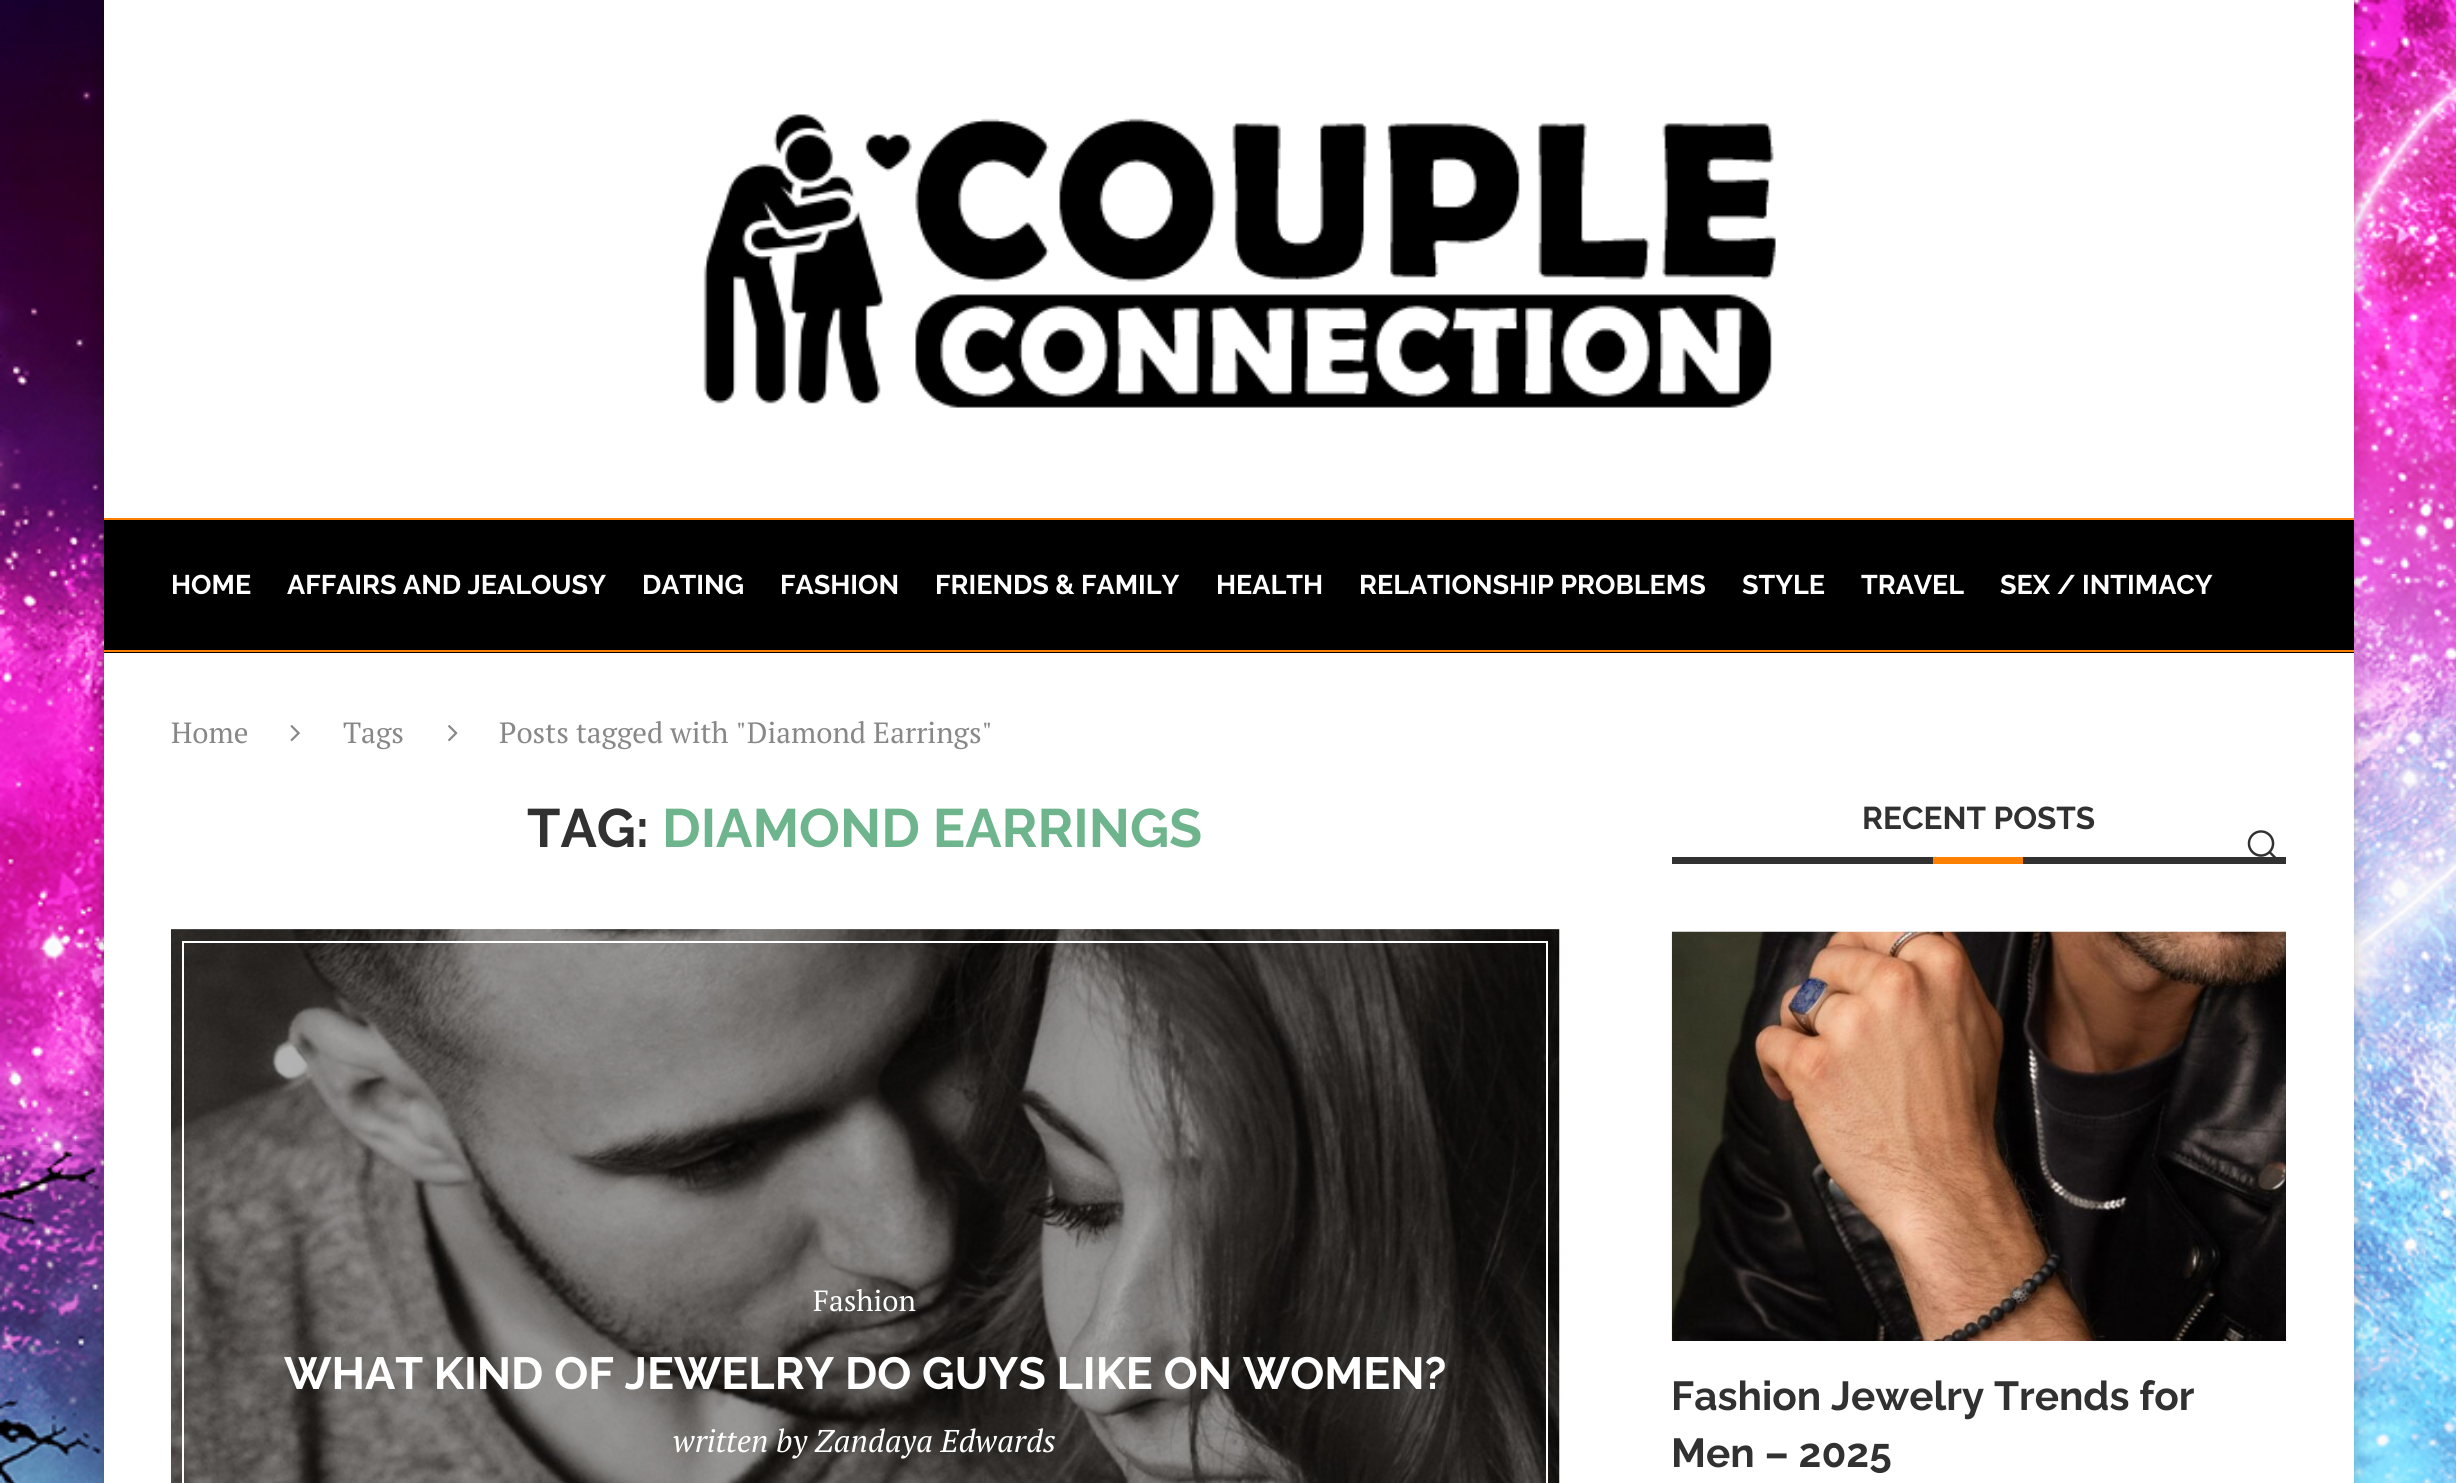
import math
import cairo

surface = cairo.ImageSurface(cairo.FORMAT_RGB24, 2456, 1483)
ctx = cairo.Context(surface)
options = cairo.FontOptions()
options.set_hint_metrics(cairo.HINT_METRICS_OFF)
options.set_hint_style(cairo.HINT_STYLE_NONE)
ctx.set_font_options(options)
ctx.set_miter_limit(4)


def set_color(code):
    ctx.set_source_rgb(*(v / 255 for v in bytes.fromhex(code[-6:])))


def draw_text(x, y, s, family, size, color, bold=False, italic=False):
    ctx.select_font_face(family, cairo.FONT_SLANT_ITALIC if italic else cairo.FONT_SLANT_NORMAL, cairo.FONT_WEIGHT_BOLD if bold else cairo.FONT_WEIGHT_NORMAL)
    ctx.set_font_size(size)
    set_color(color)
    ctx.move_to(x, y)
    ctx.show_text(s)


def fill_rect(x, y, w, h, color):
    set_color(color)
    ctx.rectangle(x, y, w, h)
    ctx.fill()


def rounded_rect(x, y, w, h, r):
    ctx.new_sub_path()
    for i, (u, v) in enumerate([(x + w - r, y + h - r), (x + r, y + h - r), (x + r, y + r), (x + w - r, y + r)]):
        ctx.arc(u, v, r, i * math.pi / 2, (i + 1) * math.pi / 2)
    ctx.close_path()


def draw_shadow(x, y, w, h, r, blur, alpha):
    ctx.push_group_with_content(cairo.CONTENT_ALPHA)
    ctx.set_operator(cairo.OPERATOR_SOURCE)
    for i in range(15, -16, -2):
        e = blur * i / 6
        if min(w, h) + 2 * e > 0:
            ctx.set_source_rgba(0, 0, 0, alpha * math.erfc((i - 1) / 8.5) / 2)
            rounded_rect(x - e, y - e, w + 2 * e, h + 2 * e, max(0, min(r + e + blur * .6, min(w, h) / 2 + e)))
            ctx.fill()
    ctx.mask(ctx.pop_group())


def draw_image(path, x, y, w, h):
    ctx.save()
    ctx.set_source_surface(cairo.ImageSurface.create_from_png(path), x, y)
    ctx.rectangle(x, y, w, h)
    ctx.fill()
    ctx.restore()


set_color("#ffffff")
ctx.paint()
draw_image("assets/img1.png", 0, 0, 2456, 1483)
set_color("#000000")
draw_shadow(104, 11, 2250, 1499, 0, 9, 0.2)
fill_rect(104, 0, 2250, 1483, "#ffffff")
draw_image("assets/img2.png", 703, 114, 1073, 294)
fill_rect(104, 520, 2250, 133, "#000000")
fill_rect(104, 518, 2250, 2, "#ff8000")
fill_rect(104, 650, 2250, 2, "#ff8000")
draw_text(171, 594, "HOME", "Raleway", 27, "#ffffff", bold=True)
draw_text(287, 594, "AFFAIRS AND JEALOUSY", "Raleway", 27, "#ffffff", bold=True)
draw_text(642, 594, "DATING", "Raleway", 27, "#ffffff", bold=True)
draw_text(780, 594, "FASHION", "Raleway", 27, "#ffffff", bold=True)
draw_text(935, 594, "FRIENDS & FAMILY", "Raleway", 27, "#ffffff", bold=True)
draw_text(1216, 594, "HEALTH", "Raleway", 27, "#ffffff", bold=True)
draw_text(1359, 594, "RELATIONSHIP PROBLEMS", "Raleway", 27, "#ffffff", bold=True)
draw_text(1742, 594, "STYLE", "Raleway", 27, "#ffffff", bold=True)
draw_text(1861, 594, "TRAVEL", "Raleway", 27, "#ffffff", bold=True)
draw_text(2000, 594, "SEX / INTIMACY", "Raleway", 27, "#ffffff", bold=True)
draw_image("assets/img3.png", 2247, 830, 30, 27)
draw_text(171, 743, "Home", "PT Serif", 29.25, "#888888")
draw_image("assets/img4.png", 290, 725, 10, 17)
draw_text(343, 743, "Tags", "PT Serif", 29.25, "#888888")
draw_image("assets/img5.png", 448, 725, 10, 17)
draw_text(499, 743, "Posts tagged with \"Diamond Earrings\"", "PT Serif", 29.25, "#888888")
draw_text(527, 847, "TAG:", "Raleway", 54, "#313131", bold=True)
draw_text(662, 847, "DIAMOND EARRINGS", "Raleway", 54, "#6eb48c", bold=True)
draw_image("assets/img6.png", 171, 929, 1389, 554)
ctx.set_source_rgba(0, 0, 0, 0.3)
ctx.rectangle(171, 929, 1388, 554)
ctx.fill()
ctx.rectangle(183, 942, 1364, 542)
set_color("#ffffff")
ctx.stroke()
draw_text(813, 1311, "Fashion", "PT Serif", 29.25, "#ffffff")
draw_text(284, 1389, "WHAT KIND OF JEWELRY DO GUYS LIKE ON WOMEN?", "Raleway", 45, "#ffffff", bold=True)
draw_text(673, 1452, "written by Zandaya Edwards", "PT Serif", 31.5, "#ffffff", italic=True)
fill_rect(1672, 857, 614, 7, "#313131")
draw_text(1862, 829, "RECENT POSTS", "Raleway", 31.5, "#313131", bold=True)
fill_rect(1933, 857, 90, 7, "#ff8000")
draw_image("assets/img7.png", 1671, 931, 615, 410)
draw_text(1671, 1410, "Fashion Jewelry Trends for", "Raleway", 40.5, "#313131", bold=True)
draw_text(1671, 1467, "Men – 2025", "Raleway", 40.5, "#313131", bold=True)
surface.write_to_png("output.png")
